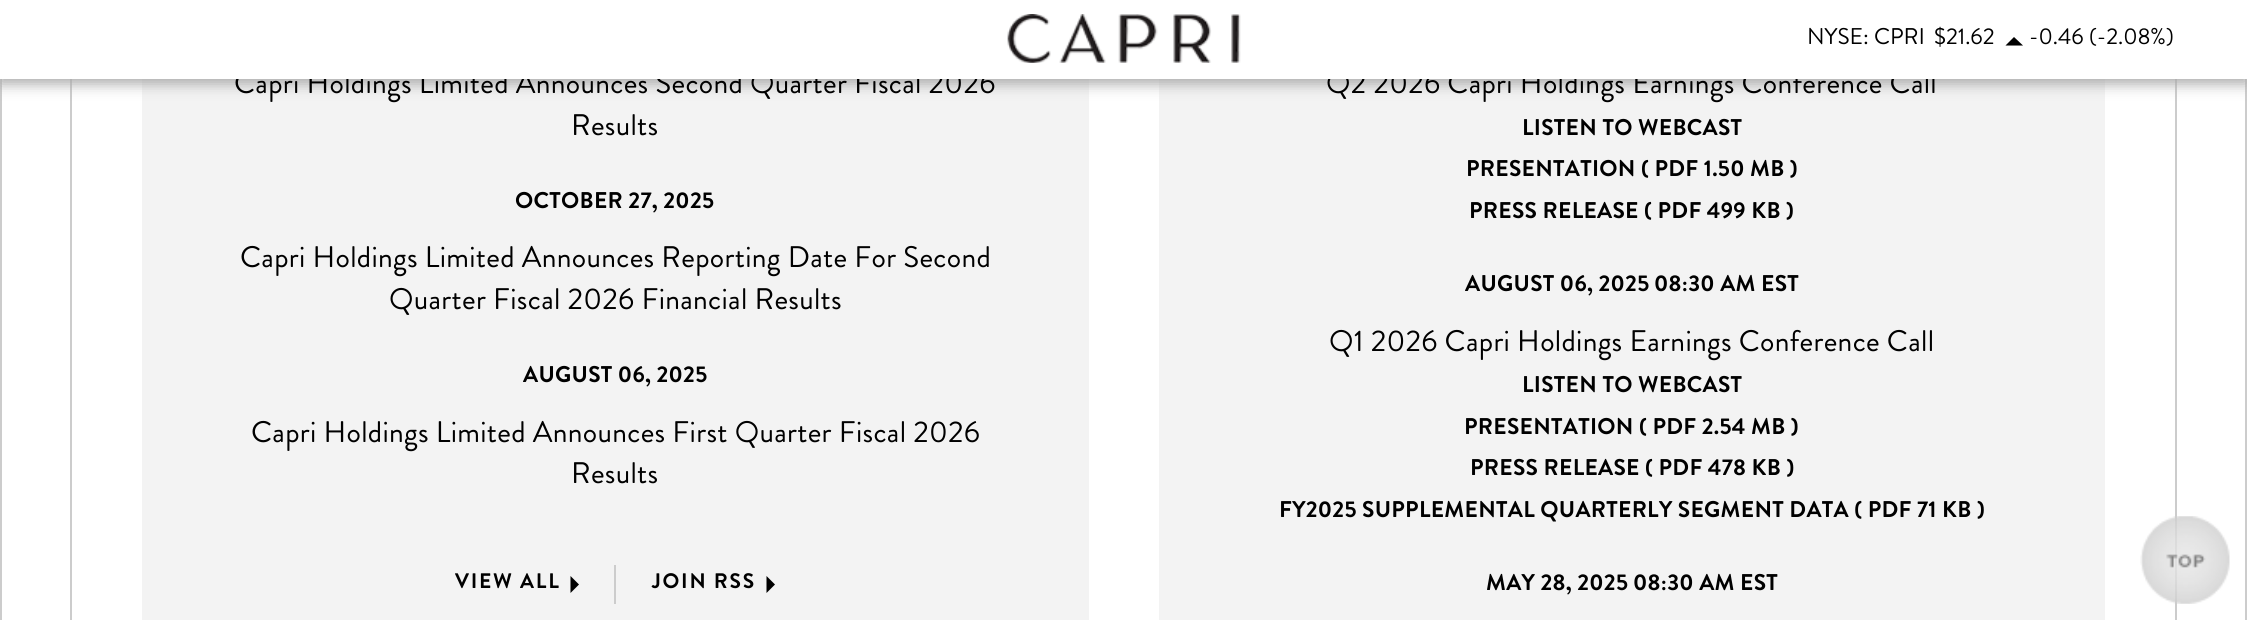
import math
import cairo

surface = cairo.ImageSurface(cairo.FORMAT_RGB24, 2247, 620)
ctx = cairo.Context(surface)
options = cairo.FontOptions()
options.set_hint_metrics(cairo.HINT_METRICS_OFF)
options.set_hint_style(cairo.HINT_STYLE_NONE)
ctx.set_font_options(options)
ctx.set_miter_limit(4)


def set_color(code):
    ctx.set_source_rgb(*(v / 255 for v in bytes.fromhex(code[-6:])))


def draw_text(x, y, s, family, size, color, bold=False, italic=False):
    ctx.select_font_face(family, cairo.FONT_SLANT_ITALIC if italic else cairo.FONT_SLANT_NORMAL, cairo.FONT_WEIGHT_BOLD if bold else cairo.FONT_WEIGHT_NORMAL)
    ctx.set_font_size(size)
    set_color(color)
    ctx.move_to(x, y)
    ctx.show_text(s)


def draw_spaced(x, y, s, letter, word):
    ctx.move_to(x, y)
    for ch in s:
        ctx.show_text(ch)
        ctx.rel_move_to(letter + word * (ch == ' '), 0)


def fill_rect(x, y, w, h, color):
    set_color(color)
    ctx.rectangle(x, y, w, h)
    ctx.fill()


def rounded_rect(x, y, w, h, r):
    ctx.new_sub_path()
    for i, (u, v) in enumerate([(x + w - r, y + h - r), (x + r, y + h - r), (x + r, y + r), (x + w - r, y + r)]):
        ctx.arc(u, v, r, i * math.pi / 2, (i + 1) * math.pi / 2)
    ctx.close_path()


def draw_shadow(x, y, w, h, r, blur, alpha):
    ctx.push_group_with_content(cairo.CONTENT_ALPHA)
    ctx.set_operator(cairo.OPERATOR_SOURCE)
    for i in range(15, -16, -2):
        e = blur * i / 6
        if min(w, h) + 2 * e > 0:
            ctx.set_source_rgba(0, 0, 0, alpha * math.erfc((i - 1) / 8.5) / 2)
            rounded_rect(x - e, y - e, w + 2 * e, h + 2 * e, max(0, min(r + e + blur * .6, min(w, h) / 2 + e)))
            ctx.fill()
    ctx.mask(ctx.pop_group())


def draw_image(path, x, y, w, h):
    ctx.save()
    ctx.set_source_surface(cairo.ImageSurface.create_from_png(path), x, y)
    ctx.rectangle(x, y, w, h)
    ctx.fill()
    ctx.restore()


set_color("#ffffff")
ctx.paint()
fill_rect(2245, 79, 2, 541, "#cccccc")
fill_rect(0, 79, 2, 541, "#cccccc")
fill_rect(2175, 79, 2, 541, "#cccccc")
fill_rect(70, 79, 2, 541, "#cccccc")
fill_rect(142, 79, 947, 541, "#f3f3f3")
fill_rect(1159, 79, 946, 541, "#f3f3f3")
set_color("#aaaaaa")
draw_shadow(0, 5, 2247, 79, 0, 7, 1)
ctx.select_font_face("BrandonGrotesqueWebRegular")
ctx.set_font_size(29.75)
set_color("#000000")
draw_spaced(234, 93, "Capri Holdings Limited Announces Second Quarter Fiscal 2026", 0.3, 0)
draw_spaced(1326, 93, "Q2 2026 Capri Holdings Earnings Conference Call", 0.3, 0)
fill_rect(0, 0, 2247, 79, "#ffffff")
draw_image("assets/img1.png", 1007, 14, 234, 49)
draw_text(1807, 44, "NYSE: CPRI", "BrandonGrotesqueWebRegular", 22.75, "#000000")
draw_text(1934, 44, "$21.62", "BrandonGrotesqueWebRegular", 22.75, "#000000")
ctx.new_path()
ctx.move_to(2023, 45.5)
ctx.line_to(2005.5, 45.5)
ctx.line_to(2014, 37)
ctx.close_path()
ctx.fill()
draw_text(2029, 44, "-0.46", "BrandonGrotesqueWebRegular", 22.75, "#000000")
draw_text(2089, 44, "(-2.08%)", "BrandonGrotesqueWebRegular", 22.75, "#000000")
ctx.set_font_size(29.75)
draw_spaced(571, 135, "Results", 0.3, 0)
ctx.select_font_face("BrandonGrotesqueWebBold")
ctx.set_font_size(22.75)
draw_spaced(515, 208, "OCTOBER 27, 2025", 0.3, 0)
ctx.select_font_face("BrandonGrotesqueWebRegular")
ctx.set_font_size(29.75)
draw_spaced(240, 267, "Capri Holdings Limited Announces Reporting Date For Second", 0.3, 0)
draw_spaced(389, 309, "Quarter Fiscal 2026 Financial Results", 0.3, 0)
ctx.select_font_face("BrandonGrotesqueWebBold")
ctx.set_font_size(22.75)
draw_spaced(523, 382, "AUGUST 06, 2025", 0.3, 0)
ctx.select_font_face("BrandonGrotesqueWebRegular")
ctx.set_font_size(29.75)
draw_spaced(251, 442, "Capri Holdings Limited Announces First Quarter Fiscal 2026", 0.3, 0)
draw_spaced(571, 483, "Results", 0.3, 0)
fill_rect(614, 565, 2, 39, "#cccccc")
ctx.select_font_face("BrandonGrotesqueWebBold")
ctx.set_font_size(21)
set_color("#000000")
draw_spaced(455, 588, "VIEW ALL", 1.75, 0)
ctx.new_path()
ctx.move_to(570.5, 593)
ctx.line_to(570.5, 576)
ctx.line_to(579, 584.5)
ctx.close_path()
ctx.fill()
draw_spaced(652, 588, "JOIN RSS", 1.75, 0)
ctx.new_path()
ctx.move_to(766.5, 593)
ctx.line_to(766.5, 576)
ctx.line_to(775, 584.5)
ctx.close_path()
ctx.fill()
ctx.set_font_size(22.75)
draw_spaced(1522, 135, "LISTEN TO WEBCAST", 0.3, 0)
draw_spaced(1466, 176, "PRESENTATION ( PDF 1.50 MB )", 0.3, 0)
draw_spaced(1469, 218, "PRESS RELEASE ( PDF 499 KB )", 0.3, 0)
draw_spaced(1465, 291, "AUGUST 06, 2025", 0.3, 0)
draw_spaced(1654, 291, "08:30 AM EST", 0.3, 0)
ctx.select_font_face("BrandonGrotesqueWebRegular")
ctx.set_font_size(29.75)
draw_spaced(1329, 351, "Q1 2026 Capri Holdings Earnings Conference Call", 0.3, 0)
ctx.select_font_face("BrandonGrotesqueWebBold")
ctx.set_font_size(22.75)
draw_spaced(1522, 392, "LISTEN TO WEBCAST", 0.3, 0)
draw_spaced(1464, 434, "PRESENTATION ( PDF 2.54 MB )", 0.3, 0)
draw_spaced(1470, 475, "PRESS RELEASE ( PDF 478 KB )", 0.3, 0)
draw_spaced(1279, 517, "FY2025 SUPPLEMENTAL QUARTERLY SEGMENT DATA ( PDF 71 KB )", 0.3, 0)
draw_spaced(1486, 590, "MAY 28, 2025", 0.3, 0)
draw_spaced(1633, 590, "08:30 AM EST", 0.3, 0)
draw_image("assets/img2.png", 2140, 516, 90, 88)
surface.write_to_png("output.png")
